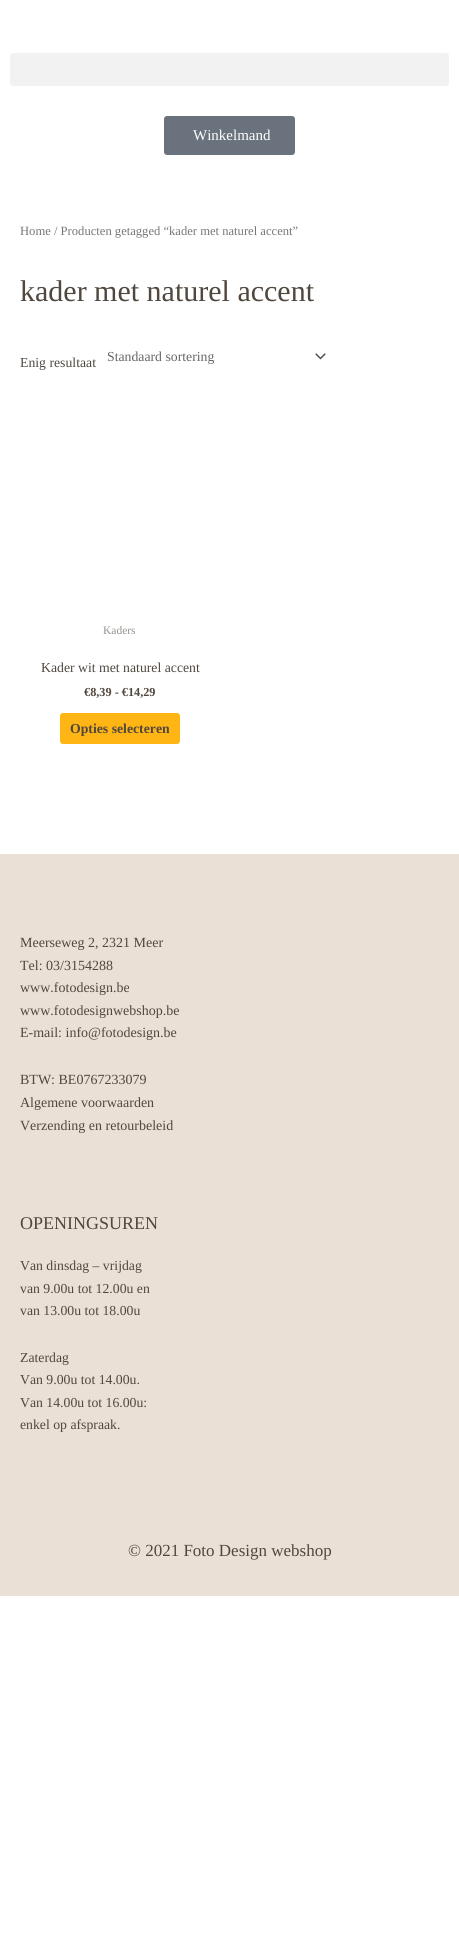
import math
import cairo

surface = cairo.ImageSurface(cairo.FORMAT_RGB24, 459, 1956)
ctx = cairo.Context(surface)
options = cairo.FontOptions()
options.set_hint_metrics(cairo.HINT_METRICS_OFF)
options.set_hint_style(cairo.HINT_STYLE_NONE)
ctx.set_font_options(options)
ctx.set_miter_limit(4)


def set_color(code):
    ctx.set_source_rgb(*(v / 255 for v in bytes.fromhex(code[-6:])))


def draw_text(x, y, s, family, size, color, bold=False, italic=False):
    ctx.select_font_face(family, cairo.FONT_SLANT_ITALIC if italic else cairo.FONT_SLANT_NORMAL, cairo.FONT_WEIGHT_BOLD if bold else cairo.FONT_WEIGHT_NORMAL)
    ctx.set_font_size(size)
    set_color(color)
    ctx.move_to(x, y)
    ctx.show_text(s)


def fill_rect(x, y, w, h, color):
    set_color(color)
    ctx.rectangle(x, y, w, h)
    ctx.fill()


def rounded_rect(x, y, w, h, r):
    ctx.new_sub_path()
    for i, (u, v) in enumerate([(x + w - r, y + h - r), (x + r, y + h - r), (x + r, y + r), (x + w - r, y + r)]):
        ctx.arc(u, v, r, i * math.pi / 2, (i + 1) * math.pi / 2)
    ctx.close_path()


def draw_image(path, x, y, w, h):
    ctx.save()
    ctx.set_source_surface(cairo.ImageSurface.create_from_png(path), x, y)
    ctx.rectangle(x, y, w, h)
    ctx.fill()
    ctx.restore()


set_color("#ffffff")
ctx.paint()
set_color("#f2f2f2")
rounded_rect(10, 53, 439, 33, 3)
ctx.fill()
set_color("#69727d")
rounded_rect(164, 116, 131, 39, 3)
ctx.fill()
draw_text(193, 140, "Winkelmand", "Liberation Serif", 15, "#ffffff")
draw_text(20, 235, "Home / Producten getagged “kader met naturel accent”", "Liberation Serif", 12.6, "#777777")
draw_text(20, 301, "kader met naturel accent", "Liberation Serif", 30, "#50473f")
draw_text(20, 367, "Enig resultaat", "Liberation Serif", 13.75, "#50473f")
draw_image("assets/img1.png", 315, 353, 11, 7)
draw_text(107, 361, "Standaard sortering", "Liberation Serif", 13.75, "#666666")
draw_text(103, 634, "Kaders", "Liberation Serif", 11.5, "#96918c")
draw_text(41, 672, "Kader wit met naturel accent", "Liberation Serif", 13.75, "#50473f")
draw_text(84, 696, "€8,39 - €14,29", "Liberation Serif", 12.25, "#50473f", bold=True)
set_color("#ffb514")
rounded_rect(60, 713, 120, 31, 3)
ctx.fill()
draw_text(70, 733, "Opties selecteren", "Liberation Serif", 13.75, "#50473f", bold=True)
fill_rect(0, 854, 459, 742, "#ebe0d6")
draw_text(20, 947, "Meerseweg 2, 2321 Meer", "Liberation Serif", 14, "#50473f")
draw_text(20, 970, "Tel: 03/3154288", "Liberation Serif", 14, "#50473f")
draw_text(20, 992, "www.fotodesign.be", "Liberation Serif", 14, "#50473f")
draw_text(20, 1015, "www.fotodesignwebshop.be", "Liberation Serif", 14, "#50473f")
draw_text(20, 1037, "E-mail: info@fotodesign.be", "Liberation Serif", 14, "#50473f")
draw_text(20, 1084, "BTW: BE0767233079", "Liberation Serif", 14, "#50473f")
draw_text(20, 1107, "Algemene voorwaarden", "Liberation Serif", 14, "#50473f")
draw_text(20, 1130, "Verzending en retourbeleid", "Liberation Serif", 14, "#50473f")
draw_text(20, 1229, "OPENINGSUREN", "Liberation Serif", 18, "#50473f")
draw_text(20, 1270, "Van dinsdag – vrijdag", "Liberation Serif", 13.75, "#50473f")
draw_text(20, 1293, "van 9.00u tot 12.00u en", "Liberation Serif", 13.75, "#50473f")
draw_text(20, 1315, "van 13.00u tot 18.00u", "Liberation Serif", 13.75, "#50473f")
draw_text(20, 1362, "Zaterdag", "Liberation Serif", 13.75, "#50473f")
draw_text(20, 1384, "Van 9.00u tot 14.00u.", "Liberation Serif", 13.75, "#50473f")
draw_text(20, 1407, "Van 14.00u tot 16.00u:", "Liberation Serif", 13.75, "#50473f")
draw_text(20, 1429, "enkel op afspraak.", "Liberation Serif", 13.75, "#50473f")
draw_text(128, 1556, "© 2021 Foto Design webshop", "Liberation Serif", 17, "#50473f")
surface.write_to_png("output.png")
